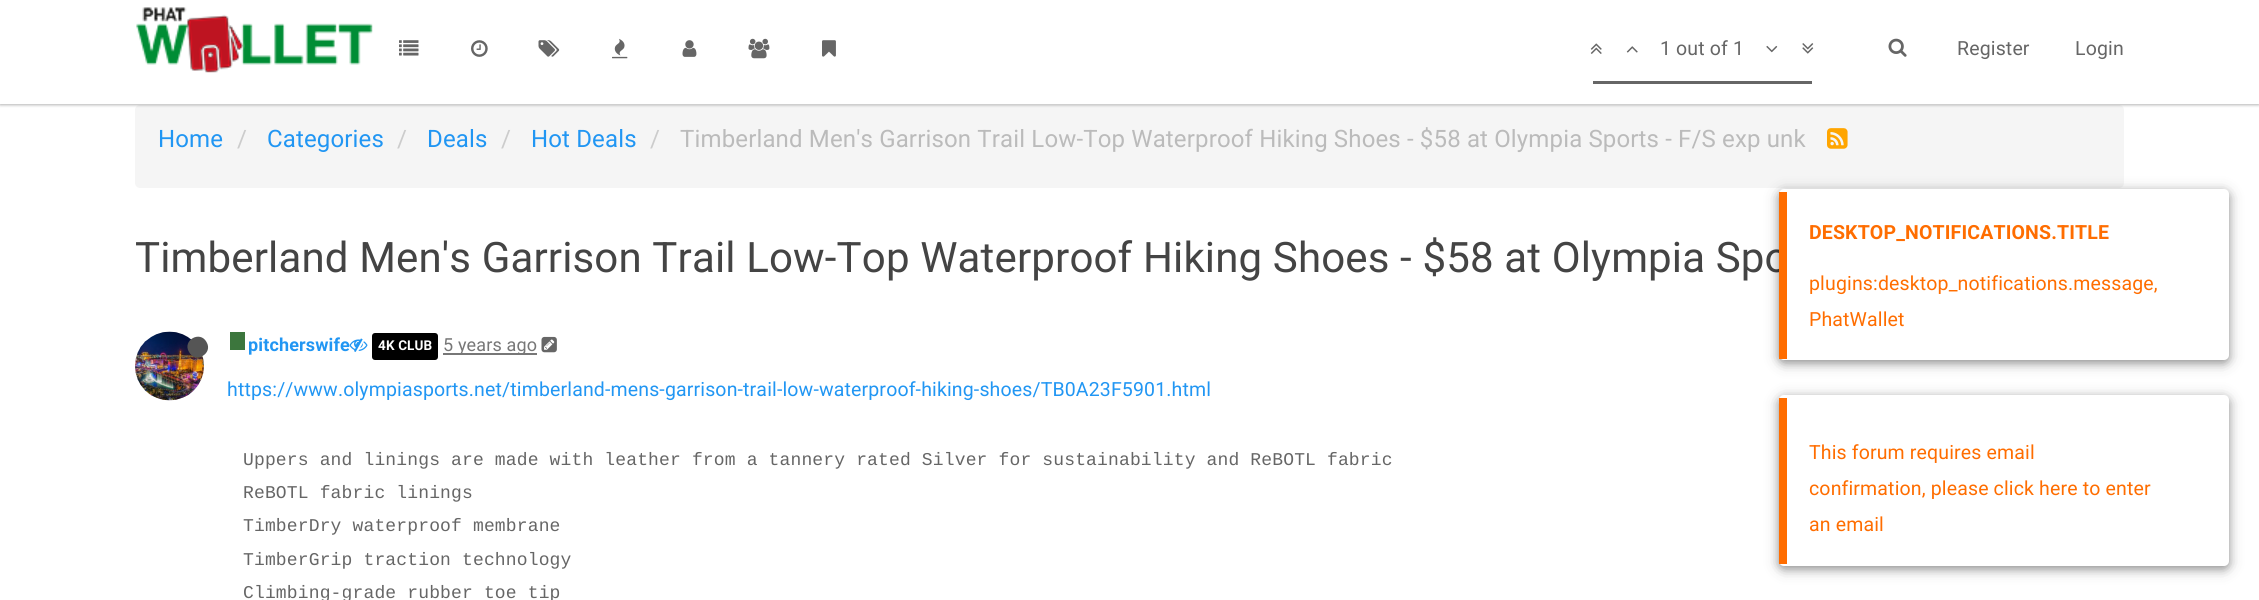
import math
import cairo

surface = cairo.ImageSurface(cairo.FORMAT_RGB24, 2259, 600)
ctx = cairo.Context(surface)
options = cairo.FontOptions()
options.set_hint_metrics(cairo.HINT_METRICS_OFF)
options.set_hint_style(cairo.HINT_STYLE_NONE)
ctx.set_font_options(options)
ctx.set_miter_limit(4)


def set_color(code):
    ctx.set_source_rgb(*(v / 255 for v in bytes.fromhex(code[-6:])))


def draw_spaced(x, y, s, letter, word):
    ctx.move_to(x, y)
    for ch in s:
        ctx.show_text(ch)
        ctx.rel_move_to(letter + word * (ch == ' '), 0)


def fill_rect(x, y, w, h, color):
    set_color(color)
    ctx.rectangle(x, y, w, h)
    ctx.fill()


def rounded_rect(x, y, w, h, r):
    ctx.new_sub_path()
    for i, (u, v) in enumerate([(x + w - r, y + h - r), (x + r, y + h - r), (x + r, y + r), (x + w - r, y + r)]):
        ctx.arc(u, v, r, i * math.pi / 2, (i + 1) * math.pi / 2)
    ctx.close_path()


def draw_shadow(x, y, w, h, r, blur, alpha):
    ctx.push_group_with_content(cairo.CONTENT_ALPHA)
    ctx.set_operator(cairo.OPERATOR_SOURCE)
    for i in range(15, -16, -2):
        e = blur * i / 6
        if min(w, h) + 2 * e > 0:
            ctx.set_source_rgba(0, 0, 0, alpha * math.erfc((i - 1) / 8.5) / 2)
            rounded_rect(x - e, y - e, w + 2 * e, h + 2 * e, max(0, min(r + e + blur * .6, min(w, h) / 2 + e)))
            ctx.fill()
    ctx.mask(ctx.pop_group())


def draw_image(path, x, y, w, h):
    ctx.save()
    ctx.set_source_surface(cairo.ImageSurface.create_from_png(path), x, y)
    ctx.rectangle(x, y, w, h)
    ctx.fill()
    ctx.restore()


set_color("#ffffff")
ctx.paint()
set_color("#f5f5f5")
rounded_rect(135, 105, 1989, 83, 5)
ctx.fill()
set_color("#000000")
draw_shadow(0, 2, 2259, 103, 0, 1.5, 0.3)
fill_rect(0, 0, 2259, 104, "#ffffff")
draw_image("assets/img1.png", 136, 7, 237, 66)
draw_image("assets/img2.png", 399, 40, 20, 16)
draw_image("assets/img3.png", 471, 40, 17, 17)
draw_image("assets/img4.png", 538, 40, 22, 17)
draw_image("assets/img5.png", 612, 38, 16, 21)
draw_image("assets/img6.png", 682, 40, 15, 17)
draw_image("assets/img7.png", 748, 38, 22, 21)
draw_image("assets/img8.png", 822, 40, 14, 17)
draw_image("assets/img9.png", 1590, 43, 12, 11)
draw_image("assets/img10.png", 1626, 46, 12, 7)
ctx.select_font_face("Roboto")
ctx.set_font_size(19.5)
set_color("#666666")
draw_spaced(1660, 55, "1 out of 1", 0.15, 0)
draw_image("assets/img11.png", 1766, 45, 12, 8)
draw_image("assets/img12.png", 1802, 43, 12, 11)
fill_rect(1593, 81, 219, 3, "#666666")
draw_image("assets/img13.png", 1888, 38, 19, 19)
draw_spaced(1957, 55, "Register", 0.15, 0)
draw_spaced(2075, 55, "Login", 0.15, 0)
ctx.set_font_size(24)
set_color("#2196f3")
draw_spaced(158, 147, "Home", 0.15, 0)
set_color("#cccccc")
draw_spaced(237, 147, "/", 0.15, 0)
set_color("#2196f3")
draw_spaced(267, 147, "Categories", 0.15, 0)
set_color("#cccccc")
draw_spaced(397, 147, "/", 0.15, 0)
set_color("#2196f3")
draw_spaced(427, 147, "Deals", 0.15, 0)
set_color("#cccccc")
draw_spaced(501, 147, "/", 0.15, 0)
set_color("#2196f3")
draw_spaced(531, 147, "Hot Deals", 0.15, 0)
set_color("#cccccc")
draw_spaced(650, 147, "/", 0.15, 0)
set_color("#bbbbbb")
draw_spaced(680, 147, "Timberland Men's Garrison Trail Low-Top Waterproof Hiking Shoes - $58 at Olympia Sports - F/S exp unk", 0.15, 0)
draw_image("assets/img14.png", 1827, 128, 21, 21)
ctx.set_font_size(42)
set_color("#444444")
draw_spaced(135, 272, "Timberland Men's Garrison Trail Low-Top Waterproof Hiking Shoes - $58 at Olympia Spo", 0.15, 0)
draw_image("assets/img15.png", 135, 331, 69, 70)
set_color("#555555")
ctx.new_path()
ctx.move_to(206.5, 342)
ctx.curve_to(213.5, 353.5, 195.5, 364, 189, 352)
ctx.curve_to(182, 340.5, 200, 330, 206.5, 342)
ctx.close_path()
ctx.fill()
fill_rect(230, 332, 15, 18, "#3c763d")
ctx.select_font_face("Roboto", cairo.FONT_SLANT_NORMAL, cairo.FONT_WEIGHT_BOLD)
ctx.set_font_size(18)
set_color("#2196f3")
draw_spaced(248, 351, "pitcherswife", 0.15, 0)
draw_image("assets/img16.png", 349, 338, 19, 14)
set_color("#000000")
rounded_rect(372, 333, 66, 27, 3)
ctx.fill()
ctx.set_font_size(13.5)
set_color("#ffffff")
draw_spaced(378, 350, "4K CLUB", 0.15, 0)
fill_rect(443, 353, 94, 2, "#777777")
ctx.select_font_face("Roboto")
ctx.set_font_size(18)
draw_spaced(443, 351, "5 years ago", 0.15, 0)
draw_image("assets/img17.png", 541, 336, 16, 17)
ctx.set_font_size(19.5)
set_color("#2196f3")
draw_spaced(227, 396, "https://www.olympiasports.net/timberland-mens-garrison-trail-low-waterproof-hiking-shoes/TB0A23F5901.html", 0.15, 0)
ctx.select_font_face("Liberation Mono")
ctx.set_font_size(18)
set_color("#666666")
draw_spaced(243, 465, "Uppers and linings are made with leather from a tannery rated Silver for sustainability and ReBOTL fabric", 0.15, 0)
draw_spaced(243, 498, "ReBOTL fabric linings", 0.15, 0)
draw_spaced(243, 531, "TimberDry waterproof membrane", 0.15, 0)
draw_spaced(243, 565, "TimberGrip traction technology", 0.15, 0)
draw_spaced(243, 598, "Climbing-grade rubber toe tip", 0.15, 0)
set_color("#000000")
draw_shadow(1779, 192, 450, 171, 5, 7.5, 0.25)
draw_shadow(1779, 192, 450, 171, 5, 4, 0.25)
set_color("#ffffff")
rounded_rect(1779, 189, 450, 171, 5)
ctx.fill()
fill_rect(1779, 192, 8, 167, "#ff6d00")
ctx.select_font_face("Roboto", cairo.FONT_SLANT_NORMAL, cairo.FONT_WEIGHT_BOLD)
ctx.set_font_size(19.5)
draw_spaced(1809, 239, "DESKTOP_NOTIFICATIONS.TITLE", 0.15, 0)
ctx.select_font_face("Roboto")
draw_spaced(1809, 290, "plugins:desktop_notifications.message,", 0.15, 0)
draw_spaced(1809, 326, "PhatWallet", 0.15, 0)
set_color("#000000")
draw_shadow(1779, 398, 450, 171, 5, 7.5, 0.25)
draw_shadow(1779, 398, 450, 171, 5, 4, 0.25)
set_color("#ffffff")
rounded_rect(1779, 395, 450, 171, 5)
ctx.fill()
fill_rect(1779, 398, 8, 166, "#ff6d00")
draw_spaced(1809, 459, "This forum requires email", 0.15, 0)
draw_spaced(1809, 495, "confirmation, please click here to enter", 0.15, 0)
draw_spaced(1809, 531, "an email", 0.15, 0)
surface.write_to_png("output.png")
